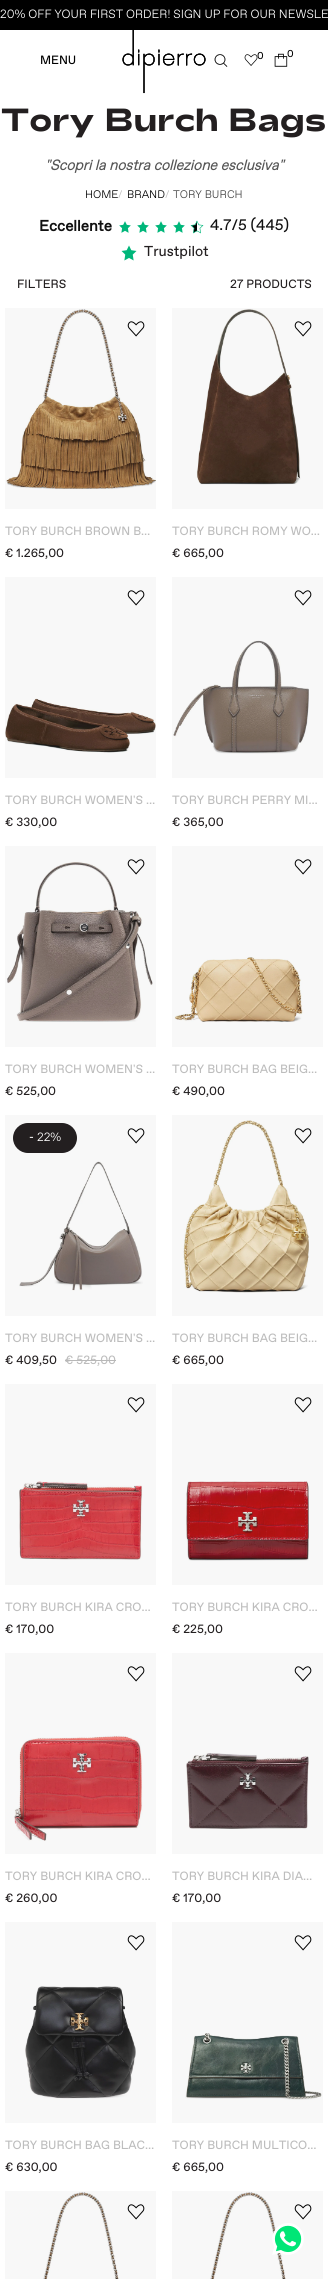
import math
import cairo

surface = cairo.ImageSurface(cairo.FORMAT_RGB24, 328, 2279)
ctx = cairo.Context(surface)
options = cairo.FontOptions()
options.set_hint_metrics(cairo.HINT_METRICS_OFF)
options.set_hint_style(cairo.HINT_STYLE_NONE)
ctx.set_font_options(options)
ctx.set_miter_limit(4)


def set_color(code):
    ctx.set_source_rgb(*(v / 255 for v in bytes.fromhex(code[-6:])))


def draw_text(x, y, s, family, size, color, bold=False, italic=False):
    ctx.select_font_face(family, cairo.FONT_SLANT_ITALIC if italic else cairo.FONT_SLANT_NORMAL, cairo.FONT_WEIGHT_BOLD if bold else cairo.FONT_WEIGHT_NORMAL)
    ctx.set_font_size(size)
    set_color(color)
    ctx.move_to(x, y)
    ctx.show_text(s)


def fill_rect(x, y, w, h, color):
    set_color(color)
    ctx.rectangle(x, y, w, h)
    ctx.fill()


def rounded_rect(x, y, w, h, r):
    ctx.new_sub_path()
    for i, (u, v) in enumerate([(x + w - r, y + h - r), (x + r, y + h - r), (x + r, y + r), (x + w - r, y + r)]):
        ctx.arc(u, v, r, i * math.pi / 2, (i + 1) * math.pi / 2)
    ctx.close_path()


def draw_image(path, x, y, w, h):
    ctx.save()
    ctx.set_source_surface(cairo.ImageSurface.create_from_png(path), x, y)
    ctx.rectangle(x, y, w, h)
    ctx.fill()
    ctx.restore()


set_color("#ffffff")
ctx.paint()
fill_rect(172, 2191, 151, 88, "#f8f8f8")
fill_rect(5, 2191, 151, 88, "#f8f8f8")
fill_rect(172, 1922, 151, 201, "#f8f8f8")
fill_rect(5, 1922, 151, 201, "#f8f8f8")
fill_rect(172, 1653, 151, 201, "#f8f8f8")
fill_rect(5, 1653, 151, 201, "#f8f8f8")
fill_rect(172, 1384, 151, 201, "#f8f8f8")
fill_rect(5, 1384, 151, 201, "#f8f8f8")
fill_rect(172, 1115, 151, 201, "#f8f8f8")
fill_rect(5, 1115, 151, 201, "#f8f8f8")
fill_rect(172, 846, 151, 201, "#f8f8f8")
fill_rect(5, 846, 151, 201, "#f8f8f8")
fill_rect(172, 577, 151, 201, "#f8f8f8")
fill_rect(5, 577, 151, 201, "#f8f8f8")
fill_rect(172, 308, 151, 201, "#f8f8f8")
fill_rect(5, 308, 151, 201, "#f8f8f8")
fill_rect(0, 0, 328, 30, "#000000")
draw_text(0, 18, "20% OFF YOUR FIRST ORDER! SIGN UP FOR OUR NEWSLE", "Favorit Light", 12, "#ffffff")
draw_text(40, 64, "MENU", "Favorit", 12, "#000000")
draw_image("assets/img1.png", 122, 30, 84, 64)
draw_image("assets/img2.png", 214, 54, 14, 13)
draw_image("assets/img3.png", 244, 54, 14, 12)
draw_text(257, 59, "0", "Favorit", 10, "#000000")
draw_image("assets/img4.png", 274, 53, 14, 14)
draw_text(287, 57, "0", "Favorit", 10, "#000000")
draw_text(1, 131, "Tory Burch Bags", "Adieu", 32, "#231f20", bold=True)
draw_text(45, 170, "\"Scopri la nostra collezione esclusiva\"", "Favorit", 14.4, "#555555", bold=True, italic=True)
draw_text(85, 198, "HOME", "Favorit Light", 11, "#000000")
draw_text(118, 198, "/", "Favorit Light", 11, "#bdbdbd")
draw_text(127, 198, "BRAND", "Favorit Light", 11, "#000000")
draw_text(165, 198, "/", "Favorit Light", 11, "#bdbdbd")
draw_text(173, 198, "TORY BURCH", "Favorit Light", 11, "#424242")
draw_text(39, 231, "Eccellente", "Favorit", 15.25, "#111111", bold=True)
draw_image("assets/img5.png", 119, 221, 12, 12)
draw_image("assets/img5.png", 137, 221, 12, 12)
draw_image("assets/img5.png", 155, 221, 12, 12)
draw_image("assets/img5.png", 173, 221, 12, 12)
draw_image("assets/img6.png", 190, 220, 14, 14)
draw_text(210, 230, "4.7/5 (445)", "Favorit", 15.25, "#111111")
draw_image("assets/img7.png", 121, 245, 16, 16)
draw_text(144, 256, "Trustpilot", "Favorit", 14.4, "#231f20")
draw_text(17, 288, "FILTERS", "Favorit", 12, "#231f20")
draw_text(230, 288, "27 PRODUCTS", "Favorit", 12, "#231f20")
draw_image("assets/img8.png", 6, 309, 150, 180)
draw_image("assets/img9.png", 127, 321, 18, 16)
draw_text(5, 535, "TORY BURCH BROWN B…", "Favorit", 12, "#bdbdbd")
draw_text(5, 557, "€ 1.265,00", "Favorit", 12, "#231f20")
draw_image("assets/img10.png", 196, 309, 105, 176)
draw_image("assets/img9.png", 294, 321, 18, 16)
draw_text(172, 535, "TORY BURCH ROMY WO…", "Favorit", 12, "#bdbdbd")
draw_text(172, 557, "€ 665,00", "Favorit", 12, "#231f20")
draw_image("assets/img9.png", 127, 590, 18, 16)
draw_image("assets/img11.png", 5, 698, 151, 55)
draw_text(5, 804, "TORY BURCH WOMEN'S …", "Favorit", 12, "#bdbdbd")
draw_text(5, 826, "€ 330,00", "Favorit", 12, "#231f20")
draw_image("assets/img9.png", 294, 590, 18, 16)
draw_image("assets/img12.png", 173, 640, 136, 114)
draw_text(172, 804, "TORY BURCH PERRY MI…", "Favorit", 12, "#bdbdbd")
draw_text(172, 826, "€ 365,00", "Favorit", 12, "#231f20")
draw_image("assets/img13.png", 7, 862, 146, 160)
draw_image("assets/img9.png", 127, 859, 18, 16)
draw_text(5, 1073, "TORY BURCH WOMEN'S …", "Favorit", 12, "#bdbdbd")
draw_text(5, 1095, "€ 525,00", "Favorit", 12, "#231f20")
draw_image("assets/img9.png", 294, 859, 18, 16)
draw_image("assets/img14.png", 174, 957, 129, 65)
draw_text(172, 1073, "TORY BURCH BAG BEIG…", "Favorit", 12, "#bdbdbd")
draw_text(172, 1095, "€ 490,00", "Favorit", 12, "#231f20")
rounded_rect(13, 1123, 64, 30, 15)
ctx.fill()
draw_text(29, 1141, "-", "Favorit", 12, "#ffffff")
draw_text(37, 1141, "22%", "Favorit Light", 12, "#ffffff")
draw_image("assets/img9.png", 127, 1128, 18, 16)
draw_image("assets/img15.png", 19, 1161, 124, 130)
draw_text(5, 1342, "TORY BURCH WOMEN'S …", "Favorit", 12, "#bdbdbd")
draw_text(5, 1364, "€ 409,50", "Favorit", 12, "#231f20")
draw_text(65, 1364, "€ 525,00", "Favorit", 12, "#bdbdbd")
fill_rect(65, 1360, 51, 1, "#b8b8b8")
draw_image("assets/img16.png", 183, 1120, 126, 173)
draw_image("assets/img9.png", 294, 1128, 18, 16)
draw_text(172, 1342, "TORY BURCH BAG BEIG…", "Favorit", 12, "#bdbdbd")
draw_text(172, 1364, "€ 665,00", "Favorit", 12, "#231f20")
draw_image("assets/img9.png", 127, 1397, 18, 16)
draw_image("assets/img17.png", 19, 1481, 124, 79)
draw_text(5, 1611, "TORY BURCH KIRA CRO…", "Favorit", 12, "#bdbdbd")
draw_text(5, 1633, "€ 170,00", "Favorit", 12, "#231f20")
draw_image("assets/img9.png", 294, 1397, 18, 16)
draw_image("assets/img18.png", 186, 1481, 123, 80)
draw_text(172, 1611, "TORY BURCH KIRA CRO…", "Favorit", 12, "#bdbdbd")
draw_text(172, 1633, "€ 225,00", "Favorit", 12, "#231f20")
draw_image("assets/img9.png", 127, 1666, 18, 16)
draw_image("assets/img19.png", 14, 1735, 129, 106)
draw_text(5, 1880, "TORY BURCH KIRA CRO…", "Favorit", 12, "#bdbdbd")
draw_text(5, 1902, "€ 260,00", "Favorit", 12, "#231f20")
draw_image("assets/img9.png", 294, 1666, 18, 16)
draw_image("assets/img20.png", 186, 1753, 123, 76)
draw_text(172, 1880, "TORY BURCH KIRA DIA…", "Favorit", 12, "#bdbdbd")
draw_text(172, 1902, "€ 170,00", "Favorit", 12, "#231f20")
draw_image("assets/img9.png", 127, 1935, 18, 16)
draw_image("assets/img21.png", 25, 1986, 111, 113)
draw_text(5, 2149, "TORY BURCH BAG BLAC…", "Favorit", 12, "#bdbdbd")
draw_text(5, 2171, "€ 630,00", "Favorit", 12, "#231f20")
draw_image("assets/img9.png", 294, 1935, 18, 16)
draw_image("assets/img22.png", 185, 2033, 137, 67)
draw_text(172, 2149, "TORY BURCH MULTICO…", "Favorit", 12, "#bdbdbd")
draw_text(172, 2171, "€ 665,00", "Favorit", 12, "#231f20")
draw_image("assets/img23.png", 43, 2192, 76, 87)
draw_image("assets/img9.png", 127, 2204, 18, 16)
draw_image("assets/img23.png", 210, 2192, 76, 87)
draw_image("assets/img9.png", 294, 2204, 18, 16)
draw_image("assets/img24.png", 272, 2223, 32, 32)
surface.write_to_png("output.png")
